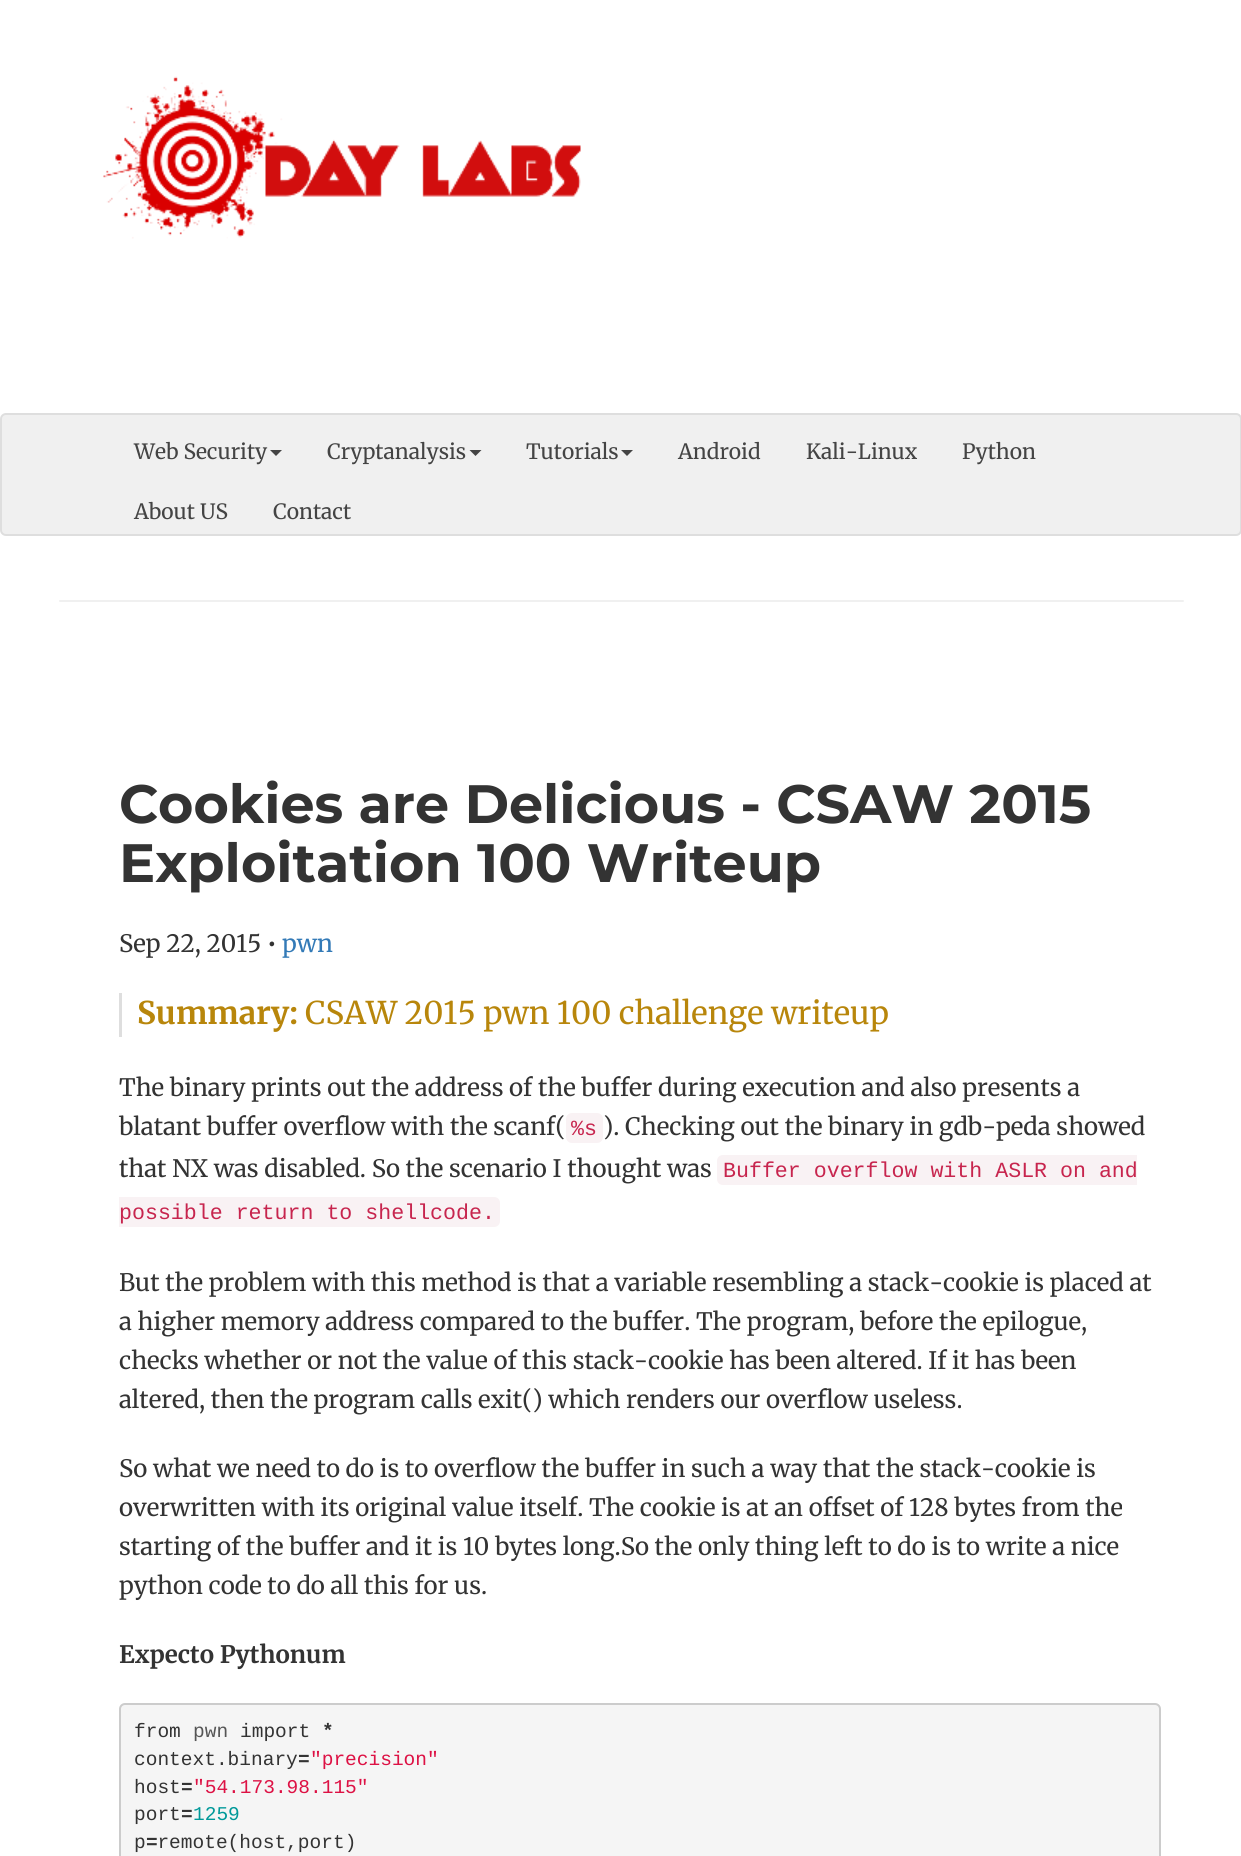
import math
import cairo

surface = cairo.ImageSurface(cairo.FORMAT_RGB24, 1241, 1856)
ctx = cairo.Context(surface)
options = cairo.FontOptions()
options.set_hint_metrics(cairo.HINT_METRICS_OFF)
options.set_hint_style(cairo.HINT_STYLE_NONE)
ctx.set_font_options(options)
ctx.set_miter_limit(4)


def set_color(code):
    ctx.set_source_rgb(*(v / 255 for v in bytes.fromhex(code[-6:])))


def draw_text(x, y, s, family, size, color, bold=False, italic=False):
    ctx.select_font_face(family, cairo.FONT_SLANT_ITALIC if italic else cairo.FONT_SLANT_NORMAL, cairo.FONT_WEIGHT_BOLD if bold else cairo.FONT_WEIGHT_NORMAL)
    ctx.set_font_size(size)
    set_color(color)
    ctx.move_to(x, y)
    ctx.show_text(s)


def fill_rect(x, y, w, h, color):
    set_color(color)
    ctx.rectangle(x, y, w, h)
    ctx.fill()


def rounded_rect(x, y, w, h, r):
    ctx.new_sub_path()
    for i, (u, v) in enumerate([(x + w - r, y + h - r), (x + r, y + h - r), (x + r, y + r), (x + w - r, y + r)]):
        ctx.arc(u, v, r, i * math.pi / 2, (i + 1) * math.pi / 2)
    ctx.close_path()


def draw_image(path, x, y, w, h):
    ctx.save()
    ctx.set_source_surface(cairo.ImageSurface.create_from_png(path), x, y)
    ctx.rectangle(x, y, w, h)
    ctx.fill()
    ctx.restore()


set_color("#ffffff")
ctx.paint()
draw_image("assets/img1.png", 103, 76, 478, 163)
set_color("#f0f0f0")
rounded_rect(1, 414, 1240, 121, 5)
ctx.fill_preserve()
set_color("#dedede")
ctx.stroke()
draw_text(134, 459, "Web Security", "Merriweather", 21, "#444444")
ctx.new_path()
ctx.move_to(270, 450)
ctx.line_to(282, 450)
ctx.line_to(276, 456)
ctx.close_path()
ctx.fill()
draw_text(327, 459, "Cryptanalysis", "Merriweather", 21, "#444444")
ctx.new_path()
ctx.move_to(469.5, 450)
ctx.line_to(481.5, 450)
ctx.line_to(475.5, 456)
ctx.close_path()
ctx.fill()
draw_text(526, 459, "Tutorials", "Merriweather", 21, "#444444")
ctx.new_path()
ctx.move_to(621, 450)
ctx.line_to(633, 450)
ctx.line_to(627, 456)
ctx.close_path()
ctx.fill()
draw_text(678, 459, "Android", "Merriweather", 21, "#444444")
draw_text(806, 459, "Kali-Linux", "Merriweather", 21, "#444444")
draw_text(962, 459, "Python", "Merriweather", 21, "#444444")
draw_text(134, 519, "About US", "Merriweather", 21, "#444444")
draw_text(273, 519, "Contact", "Merriweather", 21, "#444444")
set_color("#f0f0f0")
rounded_rect(59, 600, 1125, 2, 1)
ctx.fill()
draw_text(119, 823, "Cookies are Delicious - CSAW 2015", "Montserrat", 54, "#333333", bold=True)
draw_text(119, 882, "Exploitation 100 Writeup", "Montserrat", 54, "#333333", bold=True)
draw_text(119, 952, "Sep 22, 2015 •", "Merriweather", 24, "#333333")
draw_text(282, 952, "pwn", "Merriweather", 24, "#337ab7")
fill_rect(119, 993, 3, 44, "#dedede")
draw_text(137, 1024, "Summary:", "Merriweather", 31.25, "#b8860b", bold=True)
draw_text(305, 1024, "CSAW 2015 pwn 100 challenge writeup", "Merriweather", 31.25, "#b8860b")
draw_text(119, 1096, "The binary prints out the address of the buffer during execution and also presents a", "Merriweather", 24, "#333333")
draw_text(119, 1135, "blatant buffer overflow with the scanf(", "Merriweather", 24, "#333333")
set_color("#f9f2f4")
rounded_rect(566, 1113, 37, 30, 6)
ctx.fill()
draw_text(571, 1135, "%s", "Liberation Mono", 21.6, "#c7254e")
draw_text(603, 1135, "). Checking out the binary in gdb-peda showed", "Merriweather", 24, "#333333")
draw_text(119, 1177, "that NX was disabled. So the scenario I thought was", "Merriweather", 24, "#333333")
set_color("#f9f2f4")
ctx.new_path()
ctx.move_to(723, 1155)
ctx.line_to(1137, 1155)
ctx.line_to(1137, 1185)
ctx.line_to(723, 1185)
ctx.curve_to(719.5, 1185, 717, 1182.5, 717, 1179)
ctx.line_to(717, 1161)
ctx.curve_to(717, 1157.5, 719.5, 1155, 723, 1155)
ctx.close_path()
ctx.fill()
draw_text(723, 1177, "Buffer overflow with ASLR on and", "Liberation Mono", 21.6, "#c7254e")
set_color("#f9f2f4")
ctx.new_path()
ctx.move_to(119, 1197)
ctx.line_to(494, 1197)
ctx.curve_to(497.5, 1197, 500, 1199.5, 500, 1203)
ctx.line_to(500, 1221)
ctx.curve_to(500, 1224.5, 497.5, 1227, 494, 1227)
ctx.line_to(119, 1227)
ctx.close_path()
ctx.fill()
draw_text(119, 1219, "possible return to shellcode.", "Liberation Mono", 21.6, "#c7254e")
draw_text(119, 1291, "But the problem with this method is that a variable resembling a stack-cookie is placed at", "Merriweather", 24, "#333333")
draw_text(119, 1330, "a higher memory address compared to the buffer. The program, before the epilogue,", "Merriweather", 24, "#333333")
draw_text(119, 1369, "checks whether or not the value of this stack-cookie has been altered. If it has been", "Merriweather", 24, "#333333")
draw_text(119, 1408, "altered, then the program calls exit() which renders our overflow useless.", "Merriweather", 24, "#333333")
draw_text(119, 1477, "So what we need to do is to overflow the buffer in such a way that the stack-cookie is", "Merriweather", 24, "#333333")
draw_text(119, 1516, "overwritten with its original value itself. The cookie is at an offset of 128 bytes from the", "Merriweather", 24, "#333333")
draw_text(119, 1555, "starting of the buffer and it is 10 bytes long.So the only thing left to do is to write a nice", "Merriweather", 24, "#333333")
draw_text(119, 1594, "python code to do all this for us.", "Merriweather", 24, "#333333")
draw_text(119, 1663, "Expecto Pythonum", "Merriweather", 24, "#333333", bold=True)
set_color("#f5f5f5")
rounded_rect(120, 1704, 1040, 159, 5)
ctx.fill_preserve()
set_color("#cccccc")
ctx.stroke()
draw_text(134, 1737, "from", "Liberation Mono", 19.5, "#333333")
draw_text(193, 1737, "pwn", "Liberation Mono", 19.5, "#555555")
draw_text(240, 1737, "import", "Liberation Mono", 19.5, "#333333")
draw_text(322, 1737, "*", "Liberation Mono", 19.5, "#333333", bold=True)
draw_text(134, 1765, "context.binary", "Liberation Mono", 19.5, "#333333")
draw_text(298, 1765, "=", "Liberation Mono", 19.5, "#333333", bold=True)
draw_text(310, 1765, "\"precision\"", "Liberation Mono", 19.5, "#dd1144")
draw_text(134, 1793, "host", "Liberation Mono", 19.5, "#333333")
draw_text(181, 1793, "=", "Liberation Mono", 19.5, "#333333", bold=True)
draw_text(193, 1793, "\"54.173.98.115\"", "Liberation Mono", 19.5, "#dd1144")
draw_text(134, 1820, "port", "Liberation Mono", 19.5, "#333333")
draw_text(181, 1820, "=", "Liberation Mono", 19.5, "#333333", bold=True)
draw_text(193, 1820, "1259", "Liberation Mono", 19.5, "#009999")
draw_text(134, 1848, "p remote(host,port)", "Liberation Mono", 19.5, "#333333")
draw_text(146, 1848, "=", "Liberation Mono", 19.5, "#333333", bold=True)
surface.write_to_png("output.png")
